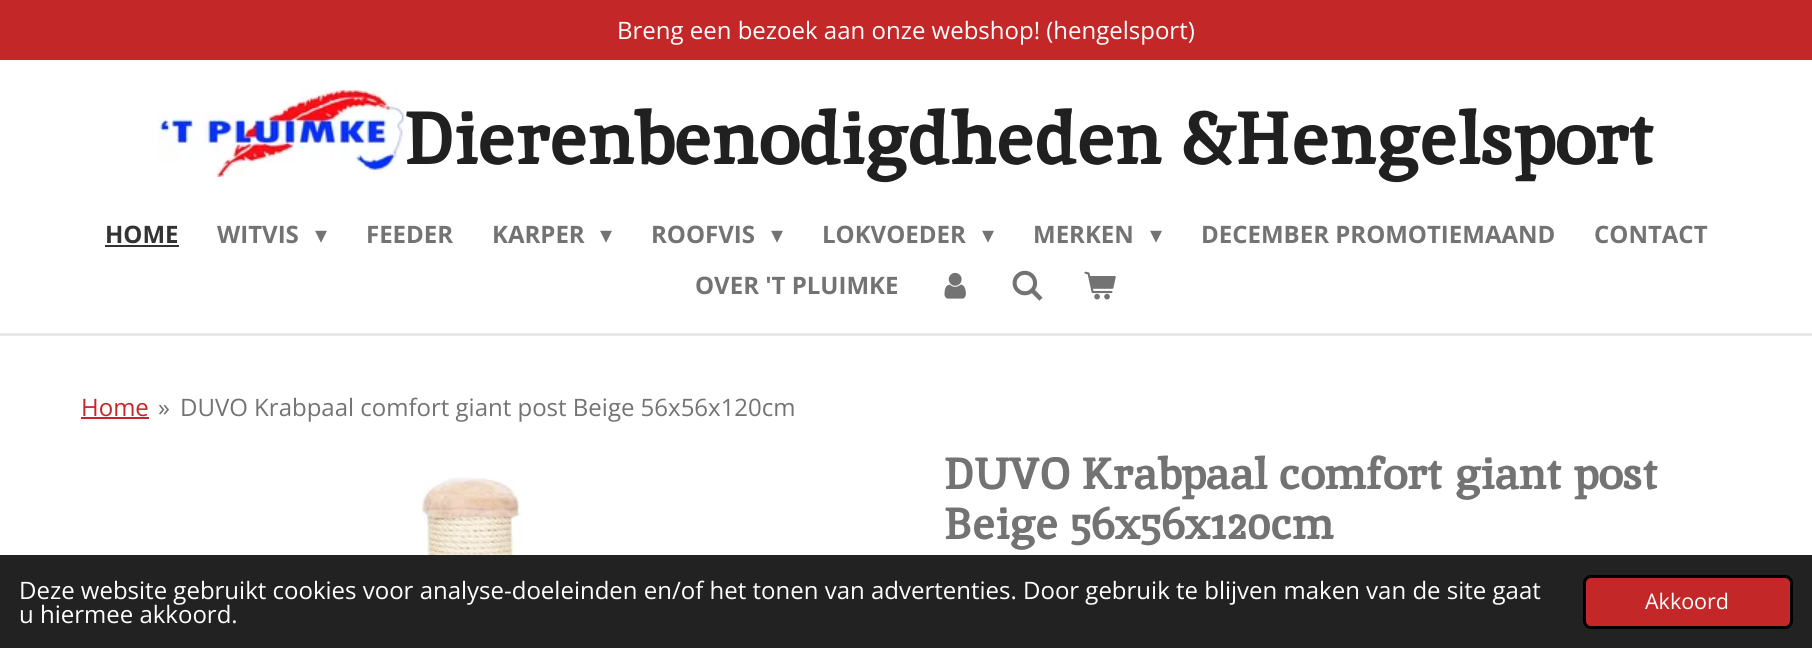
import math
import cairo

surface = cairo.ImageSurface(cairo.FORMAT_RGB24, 1812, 648)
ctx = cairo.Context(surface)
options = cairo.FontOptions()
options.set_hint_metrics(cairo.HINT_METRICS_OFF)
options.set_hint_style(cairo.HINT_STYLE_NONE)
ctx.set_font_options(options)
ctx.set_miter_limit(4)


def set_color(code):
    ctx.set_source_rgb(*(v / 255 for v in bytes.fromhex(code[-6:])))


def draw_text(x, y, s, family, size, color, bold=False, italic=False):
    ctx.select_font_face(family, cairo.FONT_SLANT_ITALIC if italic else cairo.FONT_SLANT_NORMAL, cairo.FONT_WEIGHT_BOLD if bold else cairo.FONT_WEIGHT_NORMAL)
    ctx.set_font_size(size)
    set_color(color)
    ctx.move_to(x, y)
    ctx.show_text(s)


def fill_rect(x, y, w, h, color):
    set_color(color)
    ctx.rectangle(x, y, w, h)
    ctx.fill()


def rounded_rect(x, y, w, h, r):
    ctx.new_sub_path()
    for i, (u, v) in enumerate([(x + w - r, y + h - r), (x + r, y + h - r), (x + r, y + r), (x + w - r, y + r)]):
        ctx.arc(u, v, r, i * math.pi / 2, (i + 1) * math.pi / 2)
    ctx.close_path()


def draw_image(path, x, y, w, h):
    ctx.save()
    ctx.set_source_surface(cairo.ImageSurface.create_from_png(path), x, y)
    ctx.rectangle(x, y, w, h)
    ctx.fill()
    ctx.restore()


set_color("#ffffff")
ctx.paint()
fill_rect(0, 0, 1812, 60, "#c42727")
draw_text(617, 39, "Breng een bezoek aan onze webshop! (hengelsport)", "Open Sans", 24, "#ffffff")
draw_image("assets/img1.png", 157, 90, 247, 87)
draw_text(404, 164, "Dierenbenodigdheden &Hengelsport", "Inika", 75, "#202020", bold=True)
draw_text(105, 243, "HOME", "Open Sans", 24, "#333333", bold=True)
fill_rect(105, 245, 74, 2, "#333333")
draw_text(217, 243, "WITVIS", "Open Sans", 24, "#737373", bold=True)
draw_text(315, 243, "▾", "DejaVu Sans", 24, "#737373")
draw_text(366, 243, "FEEDER", "Open Sans", 24, "#737373", bold=True)
draw_text(492, 243, "KARPER", "Open Sans", 24, "#737373", bold=True)
draw_text(600, 243, "▾", "DejaVu Sans", 24, "#737373")
draw_text(651, 243, "ROOFVIS", "Open Sans", 24, "#737373", bold=True)
draw_text(771, 243, "▾", "DejaVu Sans", 24, "#737373")
draw_text(822, 243, "LOKVOEDER", "Open Sans", 24, "#737373", bold=True)
draw_text(982, 243, "▾", "DejaVu Sans", 24, "#737373")
draw_text(1033, 243, "MERKEN", "Open Sans", 24, "#737373", bold=True)
draw_text(1150, 243, "▾", "DejaVu Sans", 24, "#737373")
draw_text(1201, 243, "DECEMBER PROMOTIEMAAND", "Open Sans", 24, "#737373", bold=True)
draw_text(1594, 243, "CONTACT", "Open Sans", 24, "#737373", bold=True)
draw_text(695, 294, "OVER 'T PLUIMKE", "Open Sans", 24, "#737373", bold=True)
draw_image("assets/img2.png", 944, 272, 22, 27)
draw_image("assets/img3.png", 1012, 270, 31, 31)
draw_image("assets/img4.png", 1084, 271, 32, 29)
fill_rect(0, 333, 1812, 3, "#eaeaea")
draw_text(81, 416, "Home", "Open Sans", 24, "#c42727")
fill_rect(81, 417, 68, 2, "#c42727")
draw_text(158, 416, "»", "Open Sans", 24, "#737373")
draw_text(180, 416, "DUVO Krabpaal comfort giant post Beige 56x56x120cm", "Open Sans", 24, "#737373")
draw_image("assets/img5.png", 417, 477, 105, 78)
draw_text(944, 489, "DUVO Krabpaal comfort giant post", "Inika", 45, "#737373", bold=True)
draw_text(944, 539, "Beige 56x56x120cm", "Inika", 45, "#737373", bold=True)
fill_rect(0, 555, 1812, 93, "#222222")
draw_text(19, 599, "Deze website gebruikt cookies voor analyse-doeleinden en/of het tonen van advertenties. Door gebruik te blijven maken van de site gaat", "Open Sans", 24, "#ffffff")
draw_text(19, 623, "u hiermee akkoord.", "Open Sans", 24, "#ffffff")
set_color("#c42727")
rounded_rect(1584.5, 576.5, 207, 51, 6.5)
ctx.fill_preserve()
set_color("#000000")
ctx.set_line_width(3)
ctx.stroke()
draw_text(1645, 609, "Akkoord", "Open Sans", 21.5, "#ffffff")
surface.write_to_png("output.png")
